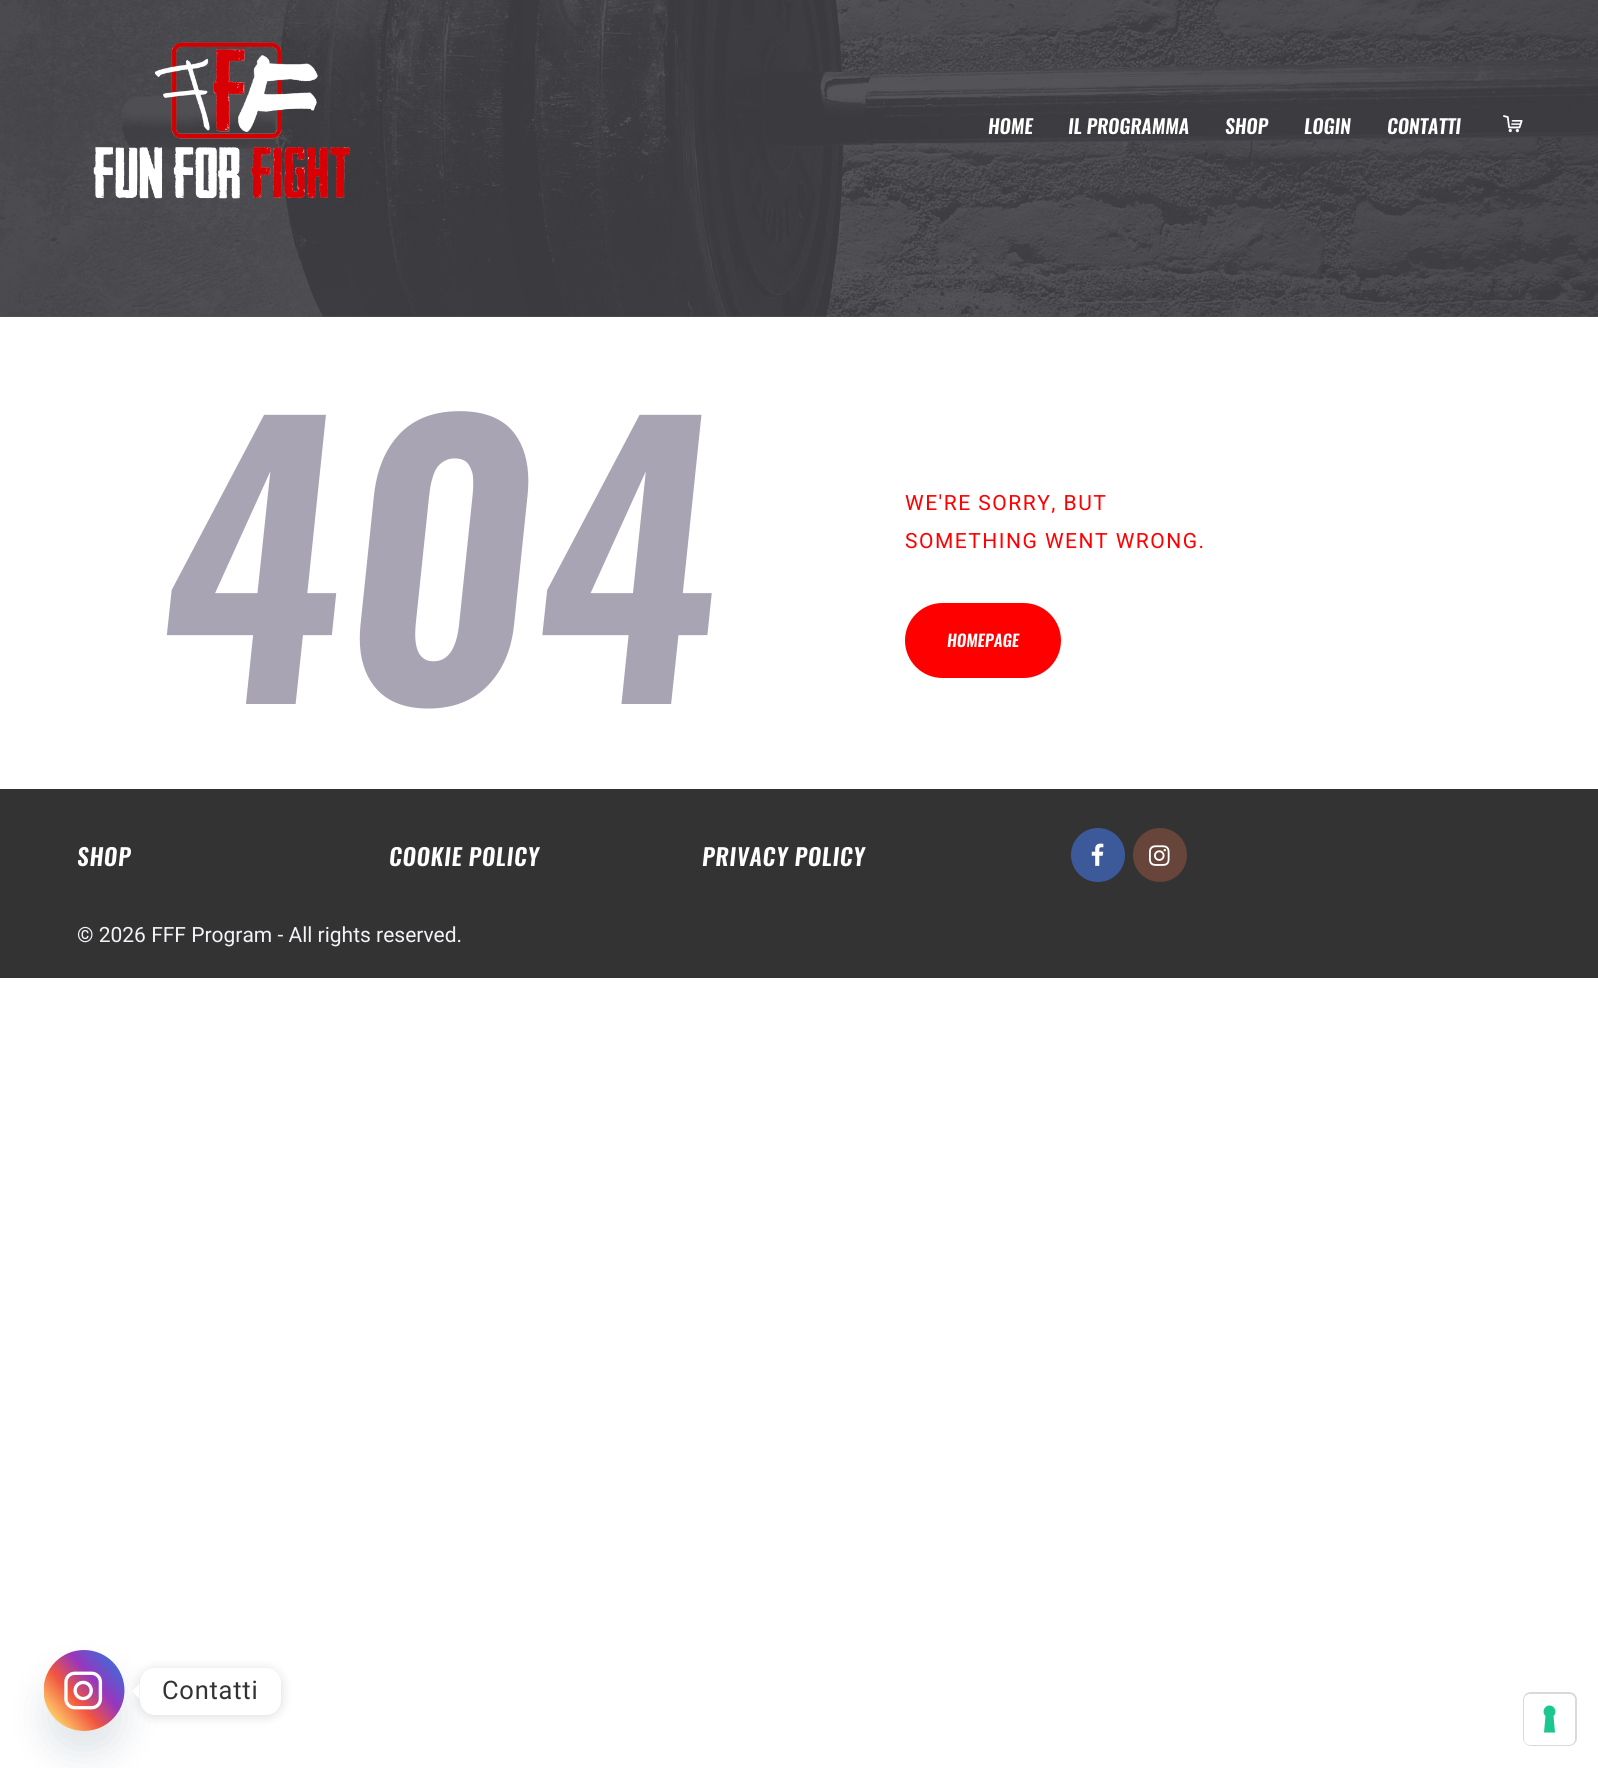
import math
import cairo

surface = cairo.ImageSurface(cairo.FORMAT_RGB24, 1598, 1768)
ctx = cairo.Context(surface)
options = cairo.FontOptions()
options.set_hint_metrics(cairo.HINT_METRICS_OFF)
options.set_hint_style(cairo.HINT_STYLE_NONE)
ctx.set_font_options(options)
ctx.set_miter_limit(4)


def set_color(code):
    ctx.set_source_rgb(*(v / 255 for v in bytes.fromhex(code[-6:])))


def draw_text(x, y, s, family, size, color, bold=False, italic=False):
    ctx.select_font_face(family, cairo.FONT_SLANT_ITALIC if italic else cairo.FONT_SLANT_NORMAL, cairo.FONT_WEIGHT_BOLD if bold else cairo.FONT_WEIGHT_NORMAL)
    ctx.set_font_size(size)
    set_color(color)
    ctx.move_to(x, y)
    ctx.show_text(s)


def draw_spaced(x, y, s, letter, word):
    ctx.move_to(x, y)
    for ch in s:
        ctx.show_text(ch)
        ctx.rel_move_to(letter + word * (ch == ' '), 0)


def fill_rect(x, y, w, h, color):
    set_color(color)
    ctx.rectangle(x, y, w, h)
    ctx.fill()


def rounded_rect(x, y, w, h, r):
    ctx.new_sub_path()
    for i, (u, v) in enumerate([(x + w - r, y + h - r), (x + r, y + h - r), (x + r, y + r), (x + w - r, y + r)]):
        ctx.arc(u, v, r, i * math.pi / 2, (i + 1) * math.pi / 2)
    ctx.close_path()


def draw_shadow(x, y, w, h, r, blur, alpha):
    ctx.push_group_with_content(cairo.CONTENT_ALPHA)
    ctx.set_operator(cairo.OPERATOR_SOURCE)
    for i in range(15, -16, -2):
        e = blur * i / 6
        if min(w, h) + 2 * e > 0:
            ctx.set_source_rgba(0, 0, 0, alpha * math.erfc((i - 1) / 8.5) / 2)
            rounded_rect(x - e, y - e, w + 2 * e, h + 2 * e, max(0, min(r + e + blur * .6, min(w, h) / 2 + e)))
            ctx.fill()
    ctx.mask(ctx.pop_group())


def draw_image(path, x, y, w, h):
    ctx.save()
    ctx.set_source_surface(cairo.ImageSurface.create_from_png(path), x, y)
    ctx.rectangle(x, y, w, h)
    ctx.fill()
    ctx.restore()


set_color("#ffffff")
ctx.paint()
fill_rect(0, 316, 1598, 1, "#555459")
draw_image("assets/img1.png", 0, 0, 1598, 317)
draw_image("assets/img2.png", 93, 42, 257, 157)
draw_text(988, 134, "HOME", "Oswald SemiBold", 19.5, "#ffffff", italic=True)
draw_text(1068, 134, "IL PROGRAMMA", "Oswald SemiBold", 19.5, "#ffffff", italic=True)
draw_text(1225, 134, "SHOP", "Oswald SemiBold", 19.5, "#ffffff", italic=True)
draw_text(1304, 134, "LOGIN", "Oswald SemiBold", 19.5, "#ffffff", italic=True)
draw_text(1387, 134, "CONTATTI", "Oswald SemiBold", 19.5, "#ffffff", italic=True)
draw_image("assets/img3.png", 1503, 115, 20, 18)
draw_text(156, 704, "404", "Oswald SemiBold", 357, "#a8a4b3", italic=True)
ctx.select_font_face("Roboto")
ctx.set_font_size(21)
set_color("#ff0000")
draw_spaced(905, 510, "WE'RE SORRY, BUT", 1.5, 0)
draw_spaced(905, 548, "SOMETHING WENT WRONG.", 1.5, 0)
rounded_rect(905, 603, 156, 75, 37.5)
ctx.fill()
draw_text(947, 647, "HOMEPAGE", "Oswald SemiBold", 16.5, "#ffffff", italic=True)
fill_rect(0, 789, 1598, 189, "#333333")
ctx.set_font_size(23.25)
set_color("#ffffff")
draw_spaced(77, 866, "SHOP", 0.75, 0)
draw_spaced(389, 866, "COOKIE POLICY", 0.75, 0)
draw_spaced(702, 866, "PRIVACY POLICY", 0.75, 0)
set_color("#3c5a9a")
ctx.new_path()
ctx.arc(1098, 855, 27, 0, 2 * math.pi)
ctx.fill()
draw_image("assets/img4.png", 1091, 843, 13, 23)
set_color("#67453b")
ctx.arc(1160, 855, 27, 0, 2 * math.pi)
ctx.fill()
draw_image("assets/img5.png", 1149, 845, 21, 21)
draw_text(77, 942, "© 2026 FFF Program - All rights reserved.", "Roboto", 21, "#f3f2f7")
set_color("#49687e")
draw_shadow(44, 1674, 81, 81, 40.5, 18, 0.16)
set_color("#ffffff")
ctx.arc(84.5, 1690.5, 40.5, 0, 2 * math.pi)
ctx.fill()
draw_image("assets/img6.png", 44, 1650, 81, 81)
set_color("#000000")
draw_shadow(140, 1670, 141, 46, 15, 6, 0.15)
set_color("#ffffff")
rounded_rect(140, 1668, 141, 47, 15)
ctx.fill()
ctx.new_path()
ctx.move_to(139.5, 1684)
ctx.line_to(139.5, 1699)
ctx.line_to(132, 1691)
ctx.close_path()
ctx.fill()
ctx.set_font_size(25.5)
set_color("#333333")
draw_spaced(162, 1699, "Contatti", 0.75, 0)
rounded_rect(1524, 1693, 52, 52, 7)
set_color("#d9d9d9")
ctx.stroke()
set_color("#ffffff")
rounded_rect(1524, 1694, 51, 51, 6)
ctx.fill()
set_color("#1cc691")
ctx.set_fill_rule(cairo.FILL_RULE_EVEN_ODD)
ctx.new_path()
ctx.move_to(1549.5, 1705.5)
ctx.curve_to(1555, 1705.5, 1557.5, 1712.5, 1553.5, 1716)
ctx.line_to(1555, 1732.5)
ctx.line_to(1544, 1732.5)
ctx.line_to(1545.5, 1716)
ctx.curve_to(1541.5, 1712.5, 1544, 1705.5, 1549.5, 1705.5)
ctx.close_path()
ctx.fill()
surface.write_to_png("output.png")
